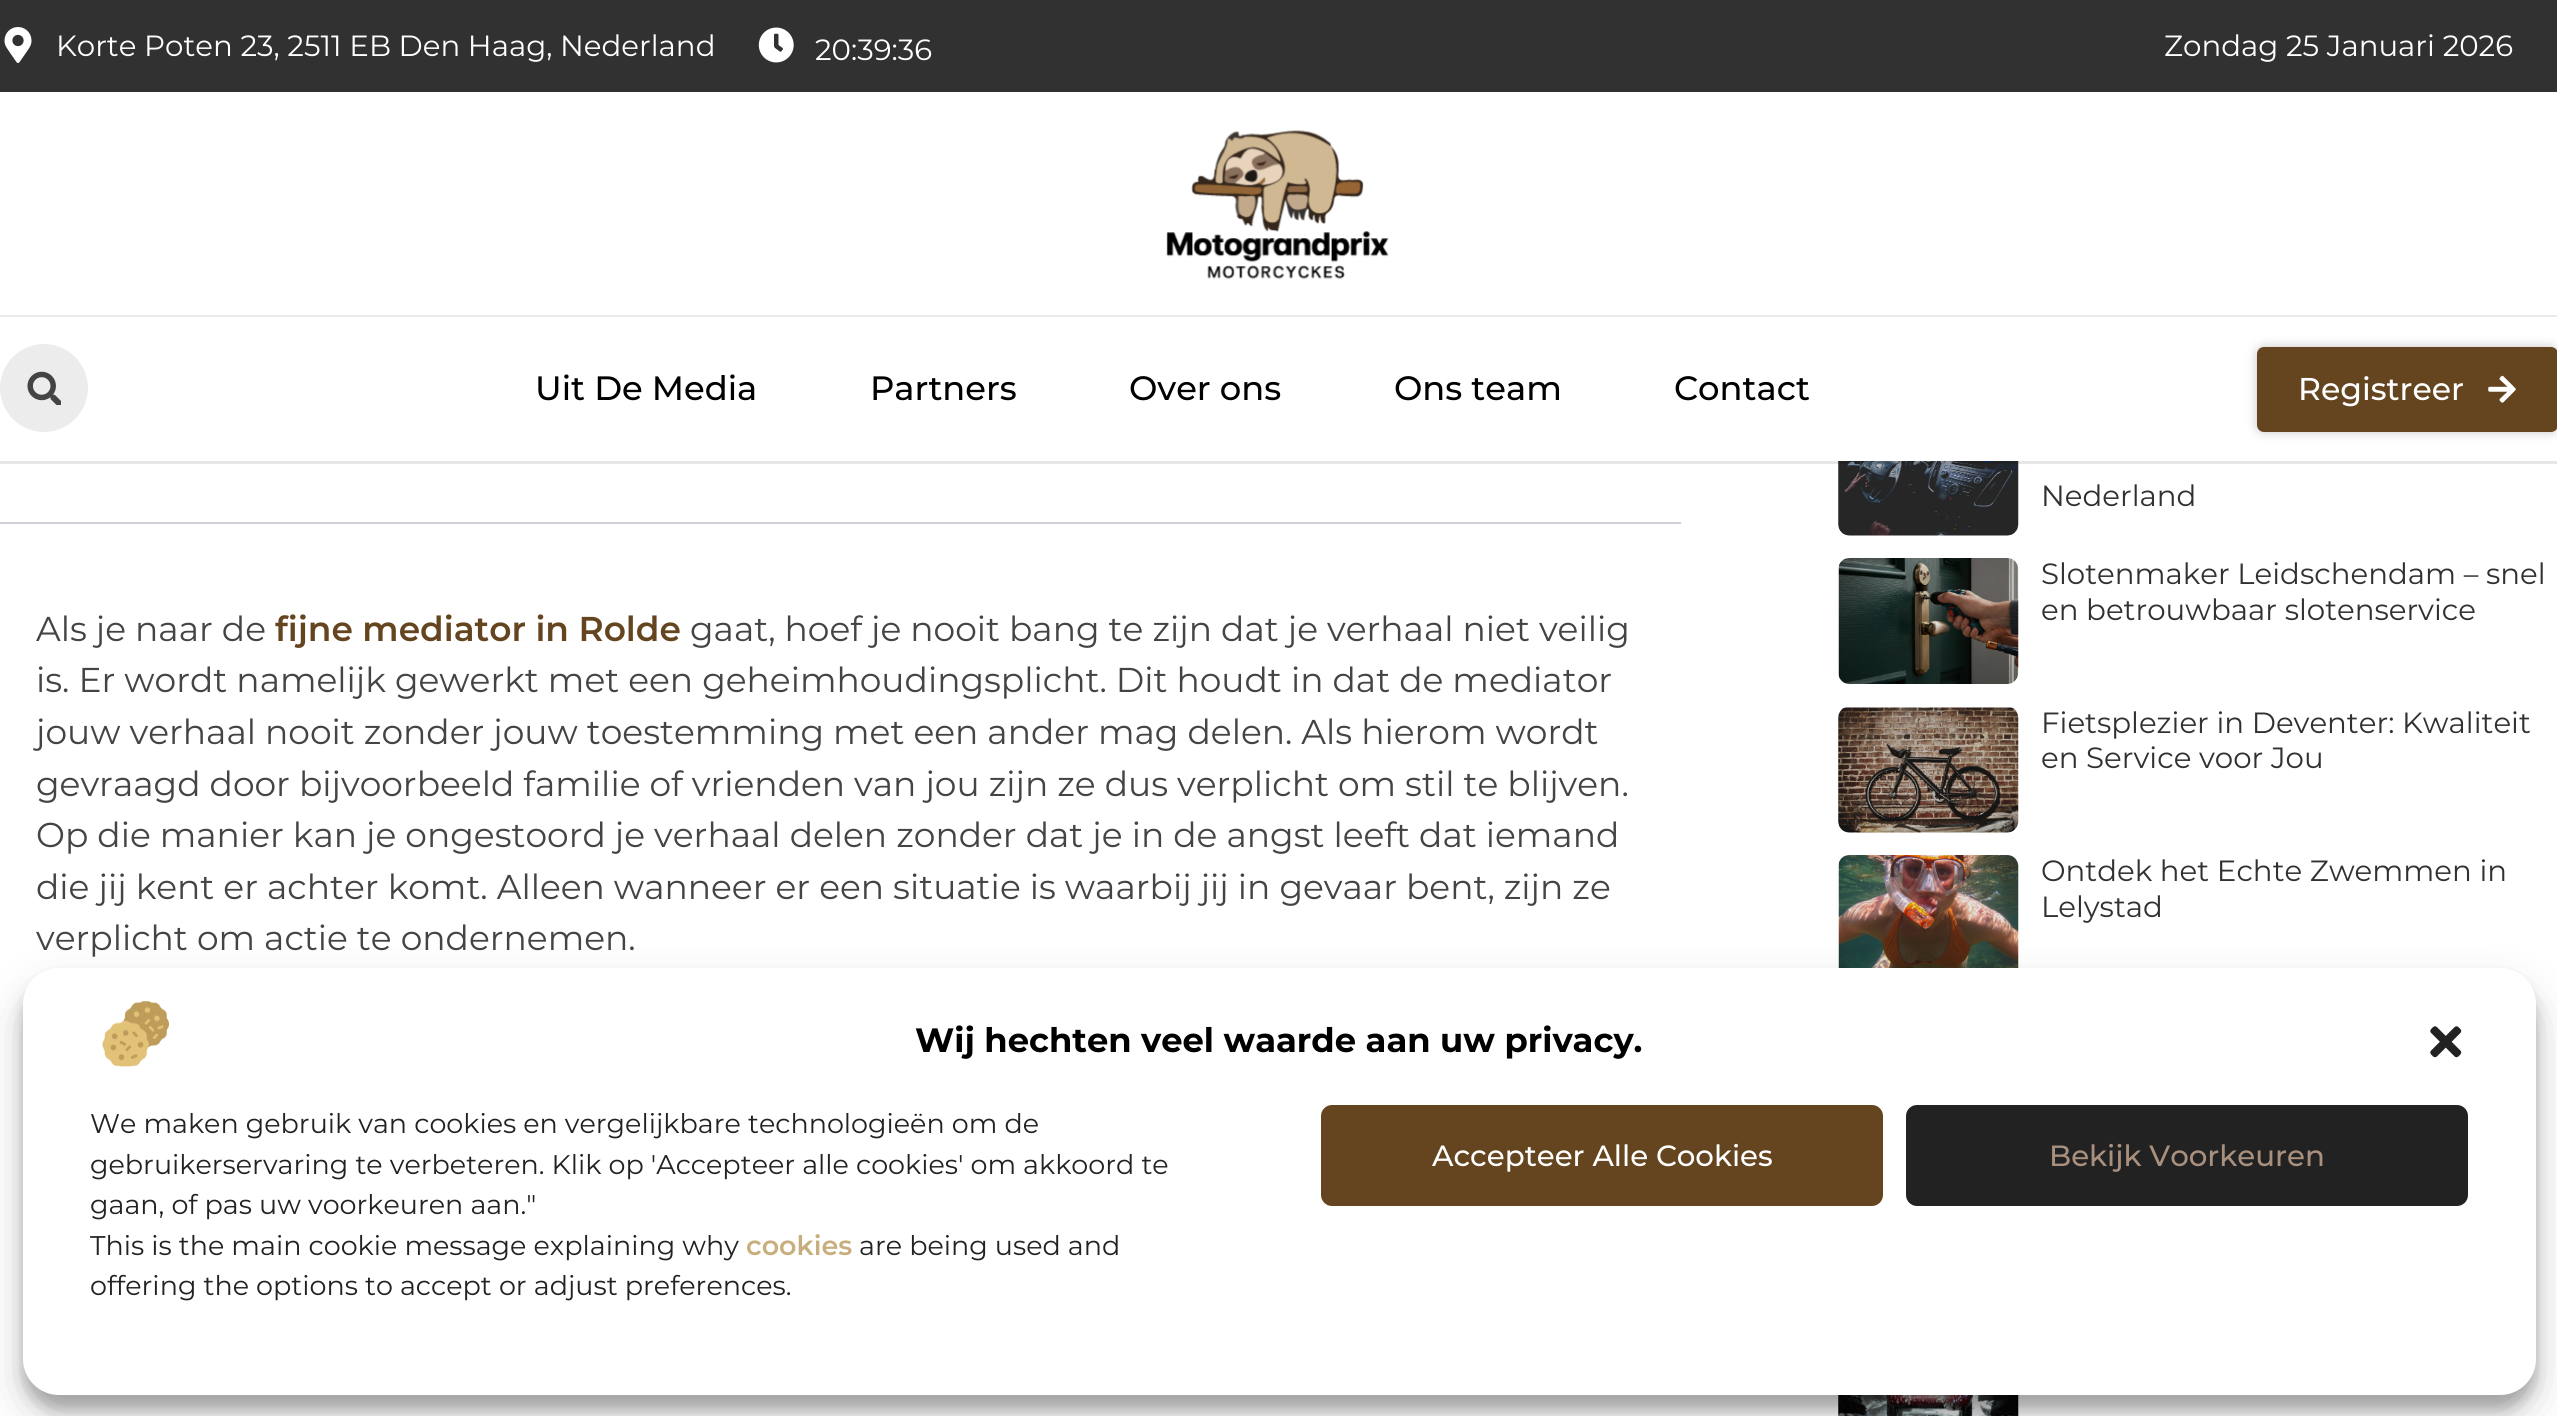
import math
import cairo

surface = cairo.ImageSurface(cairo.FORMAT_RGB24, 2557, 1416)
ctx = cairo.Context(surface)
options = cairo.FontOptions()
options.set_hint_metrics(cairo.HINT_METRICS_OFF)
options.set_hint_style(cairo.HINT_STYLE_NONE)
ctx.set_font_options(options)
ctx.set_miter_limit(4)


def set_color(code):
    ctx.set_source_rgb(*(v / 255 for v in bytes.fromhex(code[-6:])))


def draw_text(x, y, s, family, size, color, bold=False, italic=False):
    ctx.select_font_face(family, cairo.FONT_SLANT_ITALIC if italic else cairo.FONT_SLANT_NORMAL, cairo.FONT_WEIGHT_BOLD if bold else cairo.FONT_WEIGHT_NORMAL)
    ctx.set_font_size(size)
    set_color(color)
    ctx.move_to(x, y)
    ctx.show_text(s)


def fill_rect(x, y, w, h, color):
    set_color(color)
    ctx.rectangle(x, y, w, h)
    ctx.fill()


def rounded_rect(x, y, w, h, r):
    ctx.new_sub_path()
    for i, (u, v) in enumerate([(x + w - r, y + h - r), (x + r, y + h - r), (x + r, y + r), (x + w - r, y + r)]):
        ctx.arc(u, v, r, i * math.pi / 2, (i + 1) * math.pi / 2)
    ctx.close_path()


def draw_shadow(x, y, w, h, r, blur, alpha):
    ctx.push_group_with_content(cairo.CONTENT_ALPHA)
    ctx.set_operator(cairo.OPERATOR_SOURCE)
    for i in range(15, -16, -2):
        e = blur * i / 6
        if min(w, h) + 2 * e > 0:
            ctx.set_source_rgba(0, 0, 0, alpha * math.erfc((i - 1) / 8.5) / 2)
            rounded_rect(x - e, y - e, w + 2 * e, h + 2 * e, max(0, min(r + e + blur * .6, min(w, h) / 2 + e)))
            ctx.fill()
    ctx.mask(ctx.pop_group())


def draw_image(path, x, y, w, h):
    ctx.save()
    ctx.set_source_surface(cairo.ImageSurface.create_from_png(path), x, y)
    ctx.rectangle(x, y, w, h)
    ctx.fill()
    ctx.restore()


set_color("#ffffff")
ctx.paint()
draw_image("assets/img6.png", 1838, 461, 181, 75)
ctx.set_source_rgba(0, 0, 0, 0.1)
ctx.rectangle(0, 461, 2557, 3)
ctx.fill()
fill_rect(0, 0, 2557, 92, "#313131")
draw_image("assets/img1.png", 4, 27, 28, 36)
draw_text(56, 56, "Korte Poten 23, 2511 EB Den Haag, Nederland", "Montserrat", 29.25, "#ffffff")
draw_image("assets/img2.png", 758, 27, 36, 36)
draw_text(815, 60, "20:39:36", "Montserrat", 29.25, "#ffffff")
draw_text(2164, 56, "Zondag 25 Januari 2026", "Montserrat", 29.25, "#ffffff")
fill_rect(0, 315, 2557, 2, "#e9e9e9")
draw_image("assets/img3.png", 1166, 130, 223, 150)
set_color("#ececec")
ctx.arc(44, 388, 44, 0, 2 * math.pi)
ctx.fill()
draw_image("assets/img4.png", 27, 371, 34, 34)
draw_text(535, 400, "Uit De Media", "Montserrat Medium", 33.75, "#000000")
draw_text(870, 400, "Partners", "Montserrat Medium", 33.75, "#000000")
draw_text(1129, 400, "Over ons", "Montserrat Medium", 33.75, "#000000")
draw_text(1394, 400, "Ons team", "Montserrat Medium", 33.75, "#000000")
draw_text(1674, 400, "Contact", "Montserrat Medium", 33.75, "#000000")
set_color("#000000")
draw_shadow(2257, 347, 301, 85, 7, 5.5, 0.22)
set_color("#65451f")
rounded_rect(2257, 347, 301, 85, 7)
ctx.fill()
draw_text(2298, 400, "Registreer", "Montserrat Medium", 31.5, "#ffffff")
draw_image("assets/img5.png", 2488, 375, 28, 28)
fill_rect(0, 522, 1681, 2, "#d0d0d9")
draw_text(36, 641, "Als je naar de", "Montserrat", 34.45, "#444444")
draw_text(275, 641, "fijne mediator in Rolde", "Montserrat SemiBold", 34.45, "#65451f")
draw_text(690, 641, "gaat, hoef je nooit bang te zijn dat je verhaal niet veilig", "Montserrat", 34.45, "#444444")
draw_text(36, 692, "is. Er wordt namelijk gewerkt met een geheimhoudingsplicht. Dit houdt in dat de mediator", "Montserrat", 34.45, "#444444")
draw_text(36, 744, "jouw verhaal nooit zonder jouw toestemming met een ander mag delen. Als hierom wordt", "Montserrat", 34.45, "#444444")
draw_text(36, 796, "gevraagd door bijvoorbeeld familie of vrienden van jou zijn ze dus verplicht om stil te blijven.", "Montserrat", 34.45, "#444444")
draw_text(36, 847, "Op die manier kan je ongestoord je verhaal delen zonder dat je in de angst leeft dat iemand", "Montserrat", 34.45, "#444444")
draw_text(36, 899, "die jij kent er achter komt. Alleen wanneer er een situatie is waarbij jij in gevaar bent, zijn ze", "Montserrat", 34.45, "#444444")
draw_text(36, 950, "verplicht om actie te ondernemen.", "Montserrat", 34.45, "#444444")
draw_text(2041, 506, "Nederland", "Montserrat", 29.25, "#313131")
draw_image("assets/img7.png", 1838, 558, 181, 126)
draw_text(2041, 584, "Slotenmaker Leidschendam – snel", "Montserrat", 29.25, "#313131")
draw_text(2041, 620, "en betrouwbaar slotenservice", "Montserrat", 29.25, "#313131")
draw_image("assets/img8.png", 1838, 707, 181, 126)
draw_text(2041, 733, "Fietsplezier in Deventer: Kwaliteit", "Montserrat", 29.25, "#313131")
draw_text(2041, 768, "en Service voor Jou", "Montserrat", 29.25, "#313131")
draw_image("assets/img9.png", 1838, 855, 181, 113)
draw_text(2041, 881, "Ontdek het Echte Zwemmen in", "Montserrat", 29.25, "#313131")
draw_text(2041, 917, "Lelystad", "Montserrat", 29.25, "#313131")
draw_image("assets/img10.png", 1838, 1395, 181, 21)
set_color("#000000")
draw_shadow(23, 981, 2513, 428, 36, 7, 0.23)
draw_shadow(23, 990, 2513, 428, 36, 22.5, 0.19)
set_color("#ffffff")
rounded_rect(23, 968, 2513, 427, 36)
ctx.fill()
draw_image("assets/img11.png", 102, 1001, 67, 66)
draw_text(915, 1052, "Wij hechten veel waarde aan uw privacy.", "Montserrat", 33.75, "#000000", bold=True)
draw_image("assets/img12.png", 2430, 1026, 32, 32)
draw_text(90, 1133, "We maken gebruik van cookies en vergelijkbare technologieën om de", "Montserrat", 27, "#222222")
draw_text(90, 1174, "gebruikerservaring te verbeteren. Klik op 'Accepteer alle cookies' om akkoord te", "Montserrat", 27, "#222222")
draw_text(90, 1214, "gaan, of pas uw voorkeuren aan.\"", "Montserrat", 27, "#222222")
draw_text(90, 1255, "This is the main cookie message explaining why", "Montserrat", 27, "#222222")
draw_text(746, 1255, "cookies", "Montserrat SemiBold", 27, "#c8ae7d")
draw_text(859, 1255, "are being used and", "Montserrat", 27, "#222222")
draw_text(90, 1295, "offering the options to accept or adjust preferences.", "Montserrat", 27, "#222222")
set_color("#65451f")
rounded_rect(1322, 1106, 560, 99, 10)
ctx.fill_preserve()
ctx.stroke()
draw_text(1432, 1166, "Accepteer Alle Cookies", "Montserrat Medium", 29.25, "#ffffff")
set_color("#222222")
rounded_rect(1907, 1106, 560, 99, 10)
ctx.fill_preserve()
ctx.stroke()
draw_text(2049, 1166, "Bekijk Voorkeuren", "Montserrat Medium", 29.25, "#a9907e")
surface.write_to_png("output.png")
